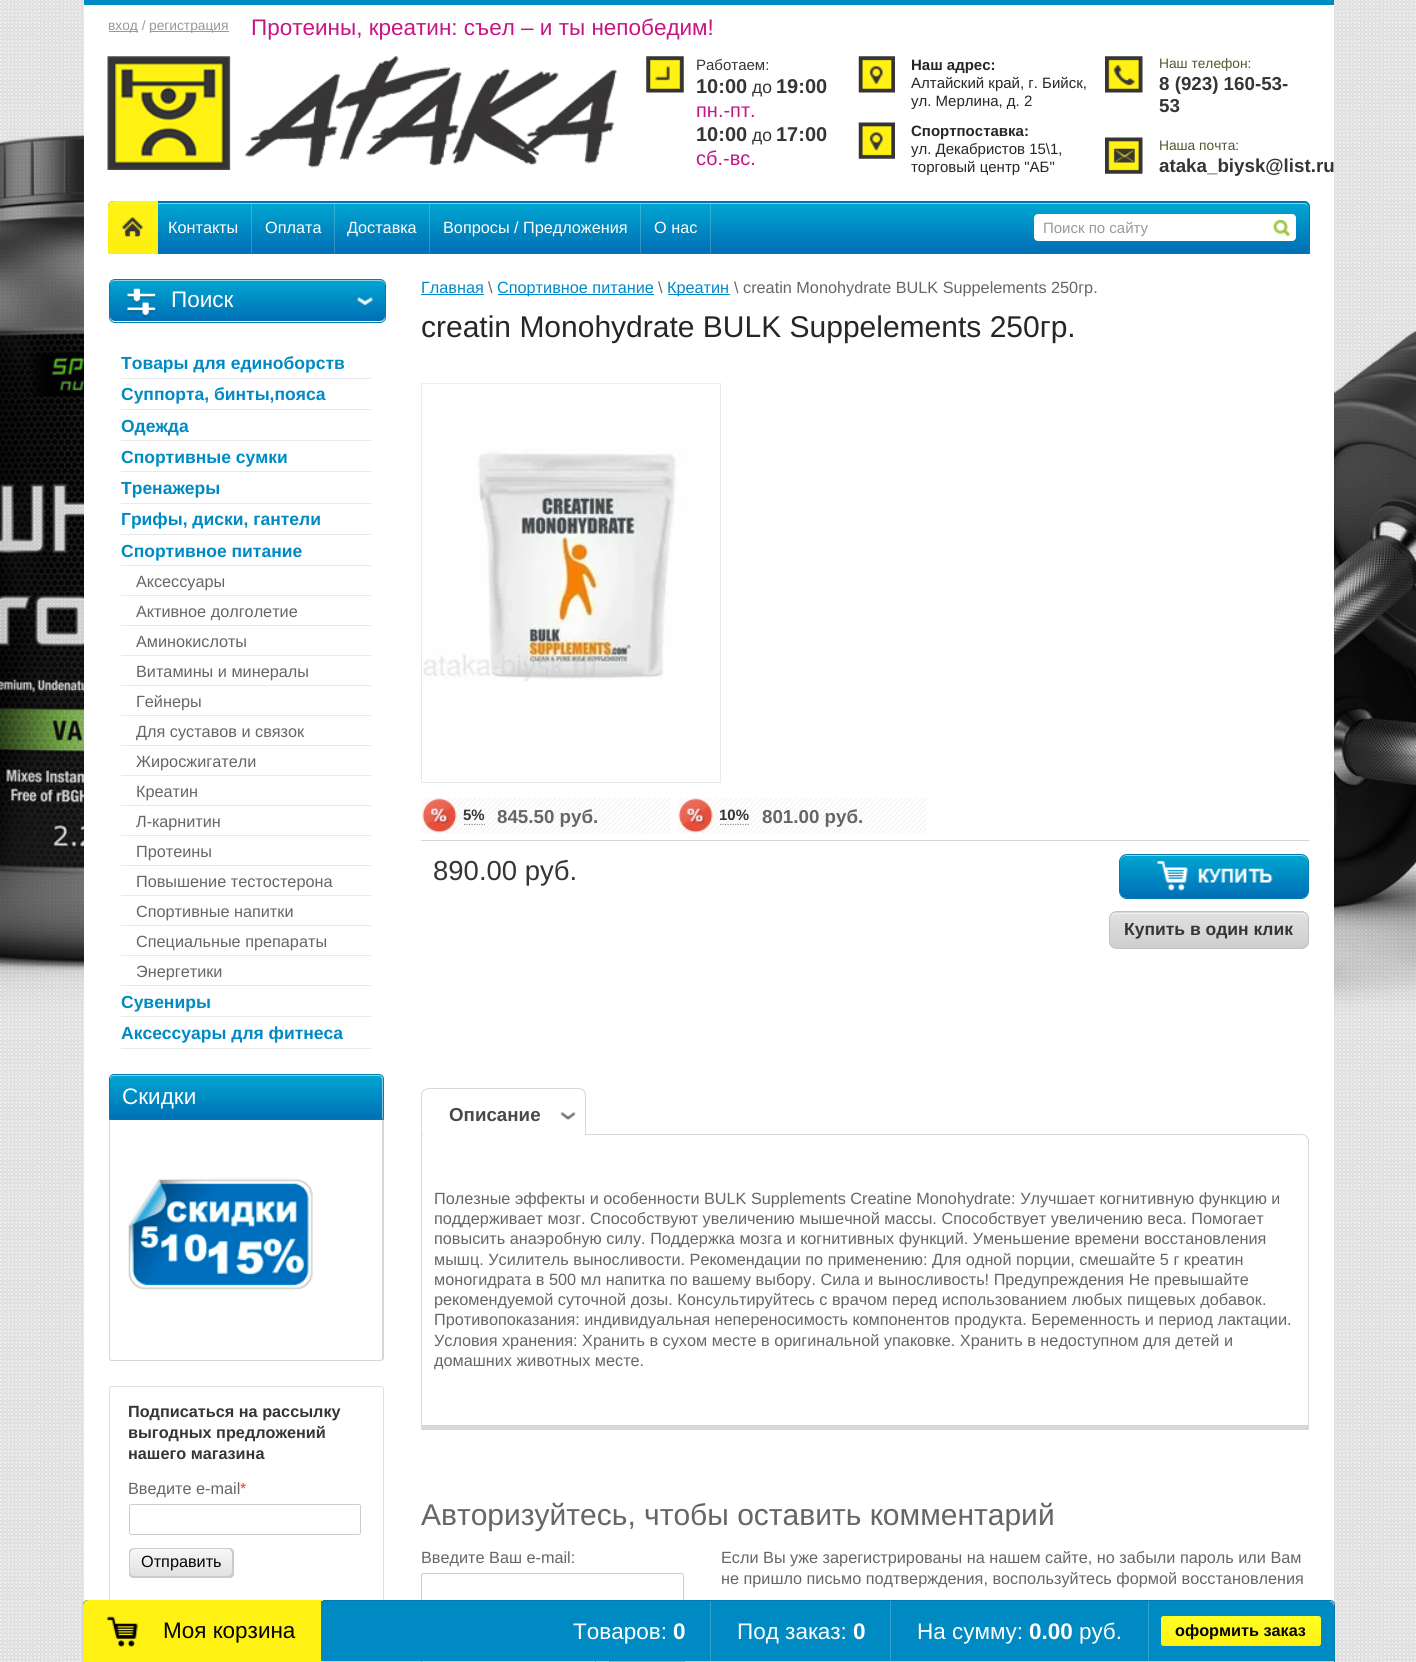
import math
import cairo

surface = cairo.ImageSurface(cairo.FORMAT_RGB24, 1416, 1662)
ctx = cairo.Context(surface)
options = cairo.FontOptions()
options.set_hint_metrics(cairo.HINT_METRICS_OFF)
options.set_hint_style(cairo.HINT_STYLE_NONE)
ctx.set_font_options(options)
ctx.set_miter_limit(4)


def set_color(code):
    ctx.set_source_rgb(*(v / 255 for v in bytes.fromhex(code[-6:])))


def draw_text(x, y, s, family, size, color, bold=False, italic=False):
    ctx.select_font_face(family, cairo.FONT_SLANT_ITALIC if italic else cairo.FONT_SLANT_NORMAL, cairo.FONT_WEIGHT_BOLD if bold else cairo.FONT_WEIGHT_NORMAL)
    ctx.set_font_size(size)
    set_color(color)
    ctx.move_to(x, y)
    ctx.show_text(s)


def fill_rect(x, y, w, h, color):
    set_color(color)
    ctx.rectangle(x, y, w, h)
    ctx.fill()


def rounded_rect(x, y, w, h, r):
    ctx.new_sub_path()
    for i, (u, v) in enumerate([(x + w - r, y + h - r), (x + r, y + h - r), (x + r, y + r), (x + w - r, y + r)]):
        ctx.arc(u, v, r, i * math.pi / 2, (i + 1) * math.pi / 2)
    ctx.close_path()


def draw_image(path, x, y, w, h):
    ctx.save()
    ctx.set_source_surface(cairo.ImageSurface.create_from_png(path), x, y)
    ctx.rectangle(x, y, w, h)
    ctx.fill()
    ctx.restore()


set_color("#ffffff")
ctx.paint()
draw_image("assets/img1.png", 0, 0, 1416, 1662)
fill_rect(84, 5, 1250, 1657, "#ffffff")
fill_rect(84, 0, 1250, 5, "#008ac3")
fill_rect(109, 31, 29, 1, "#999999")
draw_text(108, 30, "вход /", "Liberation Sans", 13.75, "#999999")
fill_rect(150, 31, 79, 1, "#999999")
draw_text(149, 30, "регистрация", "Liberation Sans", 13.75, "#999999")
draw_text(251, 35, "Протеины, креатин: съел – и ты непобедим!", "Liberation Sans", 22.5, "#c71585")
draw_image("assets/img2.png", 107, 56, 511, 114)
draw_image("assets/img3.png", 646, 56, 38, 37)
draw_text(696, 70, "Работаем:", "Liberation Sans", 15, "#363435")
draw_text(696, 93, "10:00", "Liberation Sans", 20, "#363435", bold=True)
draw_text(752, 93, "до", "Liberation Sans", 17.5, "#363435")
draw_text(776, 93, "19:00", "Liberation Sans", 20, "#363435", bold=True)
draw_text(696, 117, "пн.-пт.", "Liberation Sans", 20, "#c71585")
draw_text(696, 141, "10:00", "Liberation Sans", 20, "#363435", bold=True)
draw_text(752, 141, "до", "Liberation Sans", 17.5, "#363435")
draw_text(776, 141, "17:00", "Liberation Sans", 20, "#363435", bold=True)
draw_text(696, 165, "сб.-вс.", "Liberation Sans", 20, "#c71585")
draw_image("assets/img4.png", 858, 56, 37, 37)
draw_text(911, 70, "Наш адрес:", "Liberation Sans", 15, "#262626", bold=True)
draw_text(911, 88, "Алтайский край, г. Бийск,", "Liberation Sans", 15, "#262626")
draw_text(911, 106, "ул. Мерлина, д. 2", "Liberation Sans", 15, "#262626")
draw_image("assets/img5.png", 858, 122, 37, 37)
draw_text(911, 136, "Спортпоставка:", "Liberation Sans", 15, "#262626", bold=True)
draw_text(911, 154, "ул. Декабристов 15\\1,", "Liberation Sans", 15, "#262626")
draw_text(911, 172, "торговый центр \"АБ\"", "Liberation Sans", 15, "#262626")
draw_image("assets/img6.png", 1105, 56, 38, 37)
draw_text(1159, 68, "Наш телефон:", "Liberation Sans", 13.75, "#58542f")
draw_text(1159, 90, "8 (923) 160-53-", "Liberation Sans", 18.75, "#363435", bold=True)
draw_text(1159, 112, "53", "Liberation Sans", 18.75, "#363435", bold=True)
draw_image("assets/img7.png", 1105, 137, 38, 37)
draw_text(1159, 150, "Наша почта:", "Liberation Sans", 13.75, "#58542f")
draw_text(1159, 172, "ataka_biysk@list.ru", "Liberation Sans", 18.75, "#363435", bold=True)
ctx.save()
ctx.new_path()
ctx.move_to(114, 201)
ctx.line_to(1304, 201)
ctx.curve_to(1307.5, 201, 1310, 203.5, 1310, 207)
ctx.line_to(1310, 254)
ctx.line_to(108, 254)
ctx.line_to(108, 207)
ctx.curve_to(108, 203.5, 110.5, 201, 114, 201)
ctx.close_path()
ctx.clip()
gradient = cairo.LinearGradient(709, 203, 709, 153)
gradient.add_color_stop_rgba(0, 0, 0.435, 0.71, 1)
gradient.add_color_stop_rgba(1, 0, 0.651, 0.82, 1)
ctx.set_source(gradient)
ctx.rectangle(108, 201, 1202, 2)
ctx.fill()
gradient = cairo.LinearGradient(709, 253, 709, 203)
gradient.add_color_stop_rgba(0, 0, 0.435, 0.71, 1)
gradient.add_color_stop_rgba(1, 0, 0.651, 0.82, 1)
ctx.set_source(gradient)
ctx.rectangle(108, 203, 1202, 50)
ctx.fill()
ctx.restore()
set_color("#85d4e9")
ctx.new_path()
ctx.move_to(114, 204)
ctx.line_to(1304, 204)
ctx.curve_to(1307, 204, 1309, 206, 1309, 209)
ctx.curve_to(1309, 206, 1307, 203, 1304, 203)
ctx.line_to(114, 203)
ctx.curve_to(111, 203, 109, 206, 109, 209)
ctx.curve_to(109, 206, 111, 204, 114, 204)
ctx.close_path()
ctx.fill()
ctx.new_path()
ctx.move_to(114, 201.5)
ctx.line_to(1304, 201.5)
ctx.curve_to(1307, 201.5, 1309.5, 204, 1309.5, 207)
ctx.line_to(1309.5, 253.5)
ctx.line_to(108.5, 253.5)
ctx.line_to(108.5, 207)
ctx.curve_to(108.5, 204, 111, 201.5, 114, 201.5)
ctx.close_path()
set_color("#007cb0")
ctx.set_line_width(1)
ctx.stroke()
gradient = cairo.LinearGradient(133, 254, 133, 201)
gradient.add_color_stop_rgba(0, 1, 0.933, 0.055, 1)
gradient.add_color_stop_rgba(1, 1, 0.957, 0.086, 1)
ctx.set_source(gradient)
ctx.new_path()
ctx.move_to(114, 201)
ctx.line_to(158, 201)
ctx.line_to(158, 254)
ctx.line_to(108, 254)
ctx.line_to(108, 207)
ctx.curve_to(108, 203.5, 110.5, 201, 114, 201)
ctx.close_path()
ctx.fill()
draw_image("assets/img8.png", 122, 217, 21, 20)
ctx.set_source_rgba(1, 1, 1, 0.2)
ctx.rectangle(251, 203, 1, 50)
ctx.fill()
draw_text(168, 233, "Контакты", "Liberation Sans", 16.25, "#ffffff")
ctx.set_source_rgba(1, 1, 1, 0.2)
ctx.rectangle(334, 203, 1, 50)
ctx.fill()
draw_text(265, 233, "Оплата", "Liberation Sans", 16.25, "#ffffff")
ctx.set_source_rgba(1, 1, 1, 0.2)
ctx.rectangle(429, 203, 1, 50)
ctx.fill()
draw_text(347, 233, "Доставка", "Liberation Sans", 16.25, "#ffffff")
ctx.set_source_rgba(1, 1, 1, 0.2)
ctx.rectangle(640, 203, 1, 50)
ctx.fill()
draw_text(443, 233, "Вопросы / Предложения", "Liberation Sans", 16.25, "#ffffff")
ctx.set_source_rgba(1, 1, 1, 0.2)
ctx.rectangle(710, 203, 1, 50)
ctx.fill()
draw_text(654, 233, "О нас", "Liberation Sans", 16.25, "#ffffff")
rounded_rect(1034, 214, 262, 27, 4)
ctx.fill()
draw_text(1043, 233, "Поиск по сайту", "Liberation Sans", 15, "#999999")
draw_image("assets/img9.png", 1273, 220, 17, 17)
gradient = cairo.LinearGradient(248, 321, 248, 280)
gradient.add_color_stop_rgba(0, 0, 0.435, 0.71, 1)
gradient.add_color_stop_rgba(1, 0, 0.651, 0.82, 1)
ctx.set_source(gradient)
rounded_rect(110, 280, 275, 41, 5)
ctx.fill()
ctx.set_source_rgba(1, 1, 1, 0.52)
ctx.new_path()
ctx.move_to(115, 281)
ctx.line_to(380, 281)
ctx.curve_to(383, 281, 385, 283, 385, 286)
ctx.curve_to(385, 283, 383, 280, 380, 280)
ctx.line_to(115, 280)
ctx.curve_to(112, 280, 110, 283, 110, 286)
ctx.curve_to(110, 283, 112, 281, 115, 281)
ctx.close_path()
ctx.fill()
rounded_rect(109.5, 279.5, 276, 43, 5.5)
set_color("#007cb0")
ctx.stroke()
draw_image("assets/img10.png", 126, 288, 30, 30)
draw_text(171, 307, "Поиск", "Liberation Sans", 22.5, "#ffffff")
draw_image("assets/img11.png", 357, 297, 16, 8)
fill_rect(121, 378, 250, 1, "#e9e9e9")
draw_text(121, 369, "Товары для единоборств", "Liberation Sans", 17.5, "#008ac3", bold=True)
fill_rect(121, 409, 250, 1, "#e9e9e9")
draw_text(121, 400, "Суппорта, бинты,пояса", "Liberation Sans", 17.5, "#008ac3", bold=True)
fill_rect(121, 440, 250, 1, "#e9e9e9")
draw_text(121, 432, "Одежда", "Liberation Sans", 17.5, "#008ac3", bold=True)
fill_rect(121, 471, 250, 1, "#e9e9e9")
draw_text(121, 463, "Спортивные сумки", "Liberation Sans", 17.5, "#008ac3", bold=True)
fill_rect(121, 503, 250, 1, "#e9e9e9")
draw_text(121, 494, "Тренажеры", "Liberation Sans", 17.5, "#008ac3", bold=True)
fill_rect(121, 534, 250, 1, "#e9e9e9")
draw_text(121, 525, "Грифы, диски, гантели", "Liberation Sans", 17.5, "#008ac3", bold=True)
fill_rect(121, 565, 250, 1, "#e9e9e9")
draw_text(121, 557, "Спортивное питание", "Liberation Sans", 17.5, "#008ac3", bold=True)
fill_rect(121, 595, 250, 1, "#e9e9e9")
draw_text(136, 587, "Аксессуары", "Liberation Sans", 16.25, "#666666")
fill_rect(121, 625, 250, 1, "#e9e9e9")
draw_text(136, 617, "Активное долголетие", "Liberation Sans", 16.25, "#666666")
fill_rect(121, 655, 250, 1, "#e9e9e9")
draw_text(136, 647, "Аминокислоты", "Liberation Sans", 16.25, "#666666")
fill_rect(121, 685, 250, 1, "#e9e9e9")
draw_text(136, 677, "Витамины и минералы", "Liberation Sans", 16.25, "#666666")
fill_rect(121, 715, 250, 1, "#e9e9e9")
draw_text(136, 707, "Гейнеры", "Liberation Sans", 16.25, "#666666")
fill_rect(121, 745, 250, 1, "#e9e9e9")
draw_text(136, 737, "Для суставов и связок", "Liberation Sans", 16.25, "#666666")
fill_rect(121, 775, 250, 1, "#e9e9e9")
draw_text(136, 767, "Жиросжигатели", "Liberation Sans", 16.25, "#666666")
fill_rect(121, 805, 250, 1, "#e9e9e9")
draw_text(136, 797, "Креатин", "Liberation Sans", 16.25, "#666666")
fill_rect(121, 835, 250, 1, "#e9e9e9")
draw_text(136, 827, "Л-карнитин", "Liberation Sans", 16.25, "#666666")
fill_rect(121, 865, 250, 1, "#e9e9e9")
draw_text(136, 857, "Протеины", "Liberation Sans", 16.25, "#666666")
fill_rect(121, 895, 250, 1, "#e9e9e9")
draw_text(136, 887, "Повышение тестостерона", "Liberation Sans", 16.25, "#666666")
fill_rect(121, 925, 250, 1, "#e9e9e9")
draw_text(136, 917, "Спортивные напитки", "Liberation Sans", 16.25, "#666666")
fill_rect(121, 955, 250, 1, "#e9e9e9")
draw_text(136, 947, "Специальные препараты", "Liberation Sans", 16.25, "#666666")
fill_rect(121, 985, 250, 1, "#e9e9e9")
draw_text(136, 977, "Энергетики", "Liberation Sans", 16.25, "#666666")
fill_rect(121, 1016, 250, 1, "#e9e9e9")
draw_text(121, 1008, "Сувениры", "Liberation Sans", 17.5, "#008ac3", bold=True)
fill_rect(121, 1048, 250, 1, "#e9e9e9")
draw_text(121, 1039, "Аксессуары для фитнеса", "Liberation Sans", 17.5, "#008ac3", bold=True)
gradient = cairo.LinearGradient(246, 1119, 246, 1075)
gradient.add_color_stop_rgba(0, 0, 0.439, 0.714, 1)
gradient.add_color_stop_rgba(1, 0, 0.651, 0.82, 1)
ctx.set_source(gradient)
ctx.new_path()
ctx.move_to(114, 1075)
ctx.line_to(379, 1075)
ctx.curve_to(381, 1075, 383, 1077, 383, 1079)
ctx.line_to(383, 1119)
ctx.line_to(110, 1119)
ctx.line_to(110, 1079)
ctx.curve_to(110, 1077, 112, 1075, 114, 1075)
ctx.close_path()
ctx.fill()
ctx.set_source_rgba(1, 1, 1, 0.52)
ctx.new_path()
ctx.move_to(114, 1076)
ctx.line_to(379, 1076)
ctx.curve_to(381, 1076, 382, 1078, 382, 1080)
ctx.line_to(382, 1119)
ctx.line_to(383, 1119)
ctx.line_to(383, 1079)
ctx.curve_to(383, 1077, 381, 1075, 379, 1075)
ctx.line_to(114, 1075)
ctx.curve_to(112, 1075, 110, 1077, 110, 1079)
ctx.line_to(110, 1080)
ctx.curve_to(110, 1078, 112, 1076, 114, 1076)
ctx.close_path()
ctx.fill()
ctx.new_path()
ctx.move_to(114, 1074.5)
ctx.line_to(379, 1074.5)
ctx.curve_to(381.5, 1074.5, 383.5, 1076.5, 383.5, 1079)
ctx.line_to(383.5, 1119)
ctx.curve_to(383.5, 1119.5, 383.5, 1119.5, 383, 1119.5)
ctx.line_to(110, 1119.5)
ctx.curve_to(109.5, 1119.5, 109.5, 1119.5, 109.5, 1119)
ctx.line_to(109.5, 1079)
ctx.curve_to(109.5, 1076.5, 111.5, 1074.5, 114, 1074.5)
ctx.close_path()
set_color("#007cb0")
ctx.stroke()
draw_text(122, 1104, "Скидки", "Liberation Sans", 22.5, "#ffffff")
set_color("#d6d6d6")
ctx.set_fill_rule(cairo.FILL_RULE_EVEN_ODD)
ctx.new_path()
ctx.move_to(109, 1120)
ctx.line_to(384, 1120)
ctx.line_to(384, 1358)
ctx.curve_to(384, 1360, 382, 1361, 380, 1361)
ctx.line_to(112, 1361)
ctx.curve_to(110, 1361, 109, 1360, 109, 1358)
ctx.close_path()
ctx.move_to(110, 1120)
ctx.line_to(382, 1120)
ctx.line_to(382, 1358)
ctx.curve_to(382, 1359, 381, 1360, 380, 1360)
ctx.line_to(112, 1360)
ctx.curve_to(111, 1360, 110, 1359, 110, 1358)
ctx.close_path()
ctx.fill()
draw_image("assets/img12.png", 128, 1178, 185, 112)
rounded_rect(109.5, 1386.5, 274, 217, 2)
set_color("#e2e0dc")
ctx.stroke()
draw_text(128, 1417, "Подписаться на рассылку", "Liberation Sans", 16.25, "#363435", bold=True)
draw_text(128, 1438, "выгодных предложений", "Liberation Sans", 16.25, "#363435", bold=True)
draw_text(128, 1459, "нашего магазина", "Liberation Sans", 16.25, "#363435", bold=True)
draw_text(128, 1494, "Введите e-mail", "Liberation Sans", 16.25, "#666666")
draw_text(240, 1494, "*", "Liberation Sans", 16.25, "#eb3c3c")
rounded_rect(129.5, 1504.5, 231, 30, 2)
set_color("#cccccc")
ctx.stroke()
gradient = cairo.LinearGradient(181, 1548, 181, 1578)
gradient.add_color_stop_rgba(0, 0.973, 0.973, 0.973, 1)
gradient.add_color_stop_rgba(1, 0.875, 0.875, 0.875, 1)
ctx.set_source(gradient)
rounded_rect(129, 1548, 105, 30, 5)
ctx.fill()
set_color("#cccccc")
ctx.set_fill_rule(cairo.FILL_RULE_WINDING)
ctx.new_path()
ctx.move_to(130, 1550)
ctx.curve_to(129, 1551, 129, 1552, 129, 1553)
ctx.line_to(129, 1573)
ctx.curve_to(129, 1576, 131, 1578, 134, 1578)
ctx.line_to(229, 1578)
ctx.curve_to(231, 1578, 233, 1577, 234, 1574)
ctx.curve_to(230, 1578, 215, 1576, 214, 1576)
ctx.line_to(151, 1576)
ctx.curve_to(150, 1576, 131, 1580, 130, 1572)
ctx.close_path()
ctx.fill()
ctx.new_path()
ctx.move_to(132, 1549)
ctx.line_to(228, 1549)
ctx.curve_to(230, 1549, 232, 1551, 232, 1554)
ctx.line_to(232, 1574)
ctx.curve_to(232, 1576, 231, 1577, 231, 1578)
ctx.curve_to(235, 1576, 234, 1570, 234, 1566)
ctx.line_to(234, 1556)
ctx.curve_to(234, 1553, 234, 1548, 229, 1548)
ctx.line_to(134, 1548)
ctx.line_to(131, 1549)
ctx.close_path()
ctx.fill()
ctx.new_path()
ctx.move_to(129, 1575)
ctx.curve_to(130, 1577, 132, 1578, 134, 1578)
ctx.line_to(229, 1578)
ctx.curve_to(232, 1578, 234, 1576, 234, 1573)
ctx.line_to(234, 1553)
ctx.curve_to(234, 1551, 233, 1550, 232, 1549)
ctx.line_to(232, 1551)
ctx.line_to(232, 1571)
ctx.curve_to(232, 1574, 230, 1576, 228, 1576)
ctx.line_to(132, 1576)
ctx.curve_to(131, 1576, 130, 1576, 129, 1575)
ctx.close_path()
ctx.fill()
ctx.new_path()
ctx.move_to(135, 1549)
ctx.line_to(230, 1549)
ctx.line_to(233, 1550)
ctx.curve_to(232, 1549, 230, 1548, 229, 1548)
ctx.line_to(134, 1548)
ctx.curve_to(131, 1548, 129, 1550, 129, 1553)
ctx.line_to(129, 1573)
ctx.curve_to(129, 1574, 130, 1576, 131, 1577)
ctx.curve_to(129, 1574, 130, 1567, 130, 1564)
ctx.curve_to(130, 1560, 128, 1549, 135, 1549)
ctx.close_path()
ctx.fill()
draw_text(141, 1567, "Отправить", "Liberation Sans", 16.25, "#040404")
draw_text(421, 293, "Главная", "Liberation Sans", 16.25, "#0088cc")
fill_rect(421, 294, 63, 1, "#0088cc")
draw_text(488, 293, "\\", "Liberation Sans", 16.25, "#666666")
fill_rect(498, 294, 156, 1, "#0088cc")
draw_text(497, 293, "Спортивное питание", "Liberation Sans", 16.25, "#0088cc")
draw_text(658, 293, "\\", "Liberation Sans", 16.25, "#666666")
fill_rect(668, 294, 62, 1, "#0088cc")
draw_text(667, 293, "Креатин", "Liberation Sans", 16.25, "#0088cc")
draw_text(734, 293, "\\ creatin Monohydrate BULK Suppelements 250гр.", "Liberation Sans", 16.25, "#666666")
draw_text(421, 337, "creatin Monohydrate BULK Suppelements 250гр.", "Liberation Sans", 30, "#262626")
ctx.rectangle(421.5, 383.5, 299, 399)
set_color("#e9e9e9")
ctx.stroke()
draw_image("assets/img13.png", 422, 383, 298, 299)
draw_image("assets/img14.png", 422, 798, 249, 36)
draw_image("assets/img15.png", 422, 798, 35, 35)
ctx.save()
ctx.rectangle(464, 806, 34, 19)
ctx.clip()
ctx.new_path()
ctx.move_to(464, 824.5)
ctx.line_to(485, 824.5)
set_color("#919191")
ctx.set_line_width(1.2)
ctx.set_dash([1.25, 1.25])
ctx.stroke()
ctx.restore()
draw_text(463, 820, "5%", "Liberation Sans", 15, "#363435", bold=True)
draw_text(497, 823, "845.50 руб.", "Liberation Sans", 18.75, "#666666", bold=True)
draw_image("assets/img16.png", 678, 798, 249, 36)
draw_image("assets/img17.png", 678, 798, 35, 35)
ctx.save()
ctx.rectangle(720, 806, 43, 19)
ctx.clip()
ctx.new_path()
ctx.move_to(720, 824.5)
ctx.line_to(750, 824.5)
set_color("#919191")
ctx.set_line_width(1.2)
ctx.set_dash([1.25, 1.25])
ctx.stroke()
ctx.restore()
draw_text(719, 820, "10%", "Liberation Sans", 15, "#363435", bold=True)
draw_text(762, 823, "801.00 руб.", "Liberation Sans", 18.75, "#666666", bold=True)
fill_rect(421, 840, 888, 1, "#d6d6d6")
draw_text(433, 880, "890.00 руб.", "Liberation Sans", 27.5, "#363435")
gradient = cairo.LinearGradient(1214, 898, 1214, 855)
gradient.add_color_stop_rgba(0, 0, 0.435, 0.71, 1)
gradient.add_color_stop_rgba(1, 0, 0.651, 0.82, 1)
ctx.set_source(gradient)
rounded_rect(1120, 855, 188, 43, 6)
ctx.fill()
ctx.set_source_rgba(1, 1, 1, 0.52)
ctx.new_path()
ctx.move_to(1126, 856)
ctx.line_to(1301, 856)
ctx.curve_to(1305, 856, 1308, 859, 1308, 862)
ctx.line_to(1308, 861)
ctx.curve_to(1308, 858, 1305, 855, 1302, 855)
ctx.line_to(1126, 855)
ctx.curve_to(1123, 855, 1120, 858, 1120, 861)
ctx.line_to(1120, 862)
ctx.curve_to(1120, 859, 1123, 856, 1126, 856)
ctx.close_path()
ctx.fill()
rounded_rect(1119.5, 854.5, 189, 44, 7.5)
set_color("#007cb0")
ctx.stroke()
draw_image("assets/img18.png", 1156, 861, 117, 30)
set_color("#d7d7d7")
rounded_rect(1109, 911, 200, 38, 8)
ctx.fill()
ctx.save()
rounded_rect(1109, 911, 200, 38, 8)
ctx.clip()
gradient = cairo.LinearGradient(1209, 948, 1209, 913)
gradient.add_color_stop_rgba(0, 0.808, 0.808, 0.808, 1)
gradient.add_color_stop_rgba(1, 0.882, 0.882, 0.882, 1)
ctx.set_source(gradient)
ctx.rectangle(1109, 913, 200, 35)
ctx.fill()
ctx.restore()
set_color("#f1f1f1")
ctx.new_path()
ctx.move_to(1116, 914)
ctx.line_to(1301, 914)
ctx.curve_to(1305, 914, 1308, 917, 1308, 920)
ctx.curve_to(1308, 917, 1307, 914, 1303, 913)
ctx.line_to(1116, 913)
ctx.curve_to(1112, 913, 1110, 916, 1110, 920)
ctx.curve_to(1110, 917, 1113, 914, 1116, 914)
ctx.close_path()
ctx.fill()
rounded_rect(1109.5, 911.5, 199, 37, 7.5)
set_color("#c2c2c2")
ctx.stroke()
draw_text(1124, 935, "Купить в один клик", "Liberation Sans", 17.5, "#363435", bold=True)
fill_rect(421, 1425, 888, 5, "#d8d8d8")
ctx.set_fill_rule(cairo.FILL_RULE_EVEN_ODD)
ctx.new_path()
ctx.move_to(421, 1134)
ctx.line_to(1301, 1134)
ctx.curve_to(1305, 1134, 1309, 1137, 1309, 1141)
ctx.line_to(1309, 1425)
ctx.line_to(421, 1425)
ctx.close_path()
ctx.move_to(422, 1135)
ctx.line_to(1301, 1135)
ctx.curve_to(1305, 1135, 1308, 1138, 1308, 1141)
ctx.line_to(1308, 1425)
ctx.line_to(422, 1425)
ctx.close_path()
ctx.fill()
set_color("#ffffff")
ctx.new_path()
ctx.move_to(429, 1089)
ctx.line_to(579, 1089)
ctx.curve_to(582.5, 1089, 585, 1091.5, 585, 1095)
ctx.line_to(585, 1135)
ctx.line_to(423, 1135)
ctx.line_to(423, 1095)
ctx.curve_to(423, 1091.5, 425.5, 1089, 429, 1089)
ctx.close_path()
ctx.fill()
draw_image("assets/img19.png", 560, 1112, 16, 8)
set_color("#d8d8d8")
ctx.new_path()
ctx.move_to(429, 1088)
ctx.line_to(579, 1088)
ctx.curve_to(583, 1088, 586, 1091, 586, 1095)
ctx.line_to(586, 1135)
ctx.line_to(421, 1135)
ctx.line_to(421, 1095)
ctx.curve_to(421, 1091, 425, 1088, 429, 1088)
ctx.close_path()
ctx.move_to(429, 1089)
ctx.line_to(579, 1089)
ctx.curve_to(582, 1089, 585, 1092, 585, 1095)
ctx.line_to(585, 1135)
ctx.line_to(422, 1135)
ctx.line_to(422, 1095)
ctx.curve_to(422, 1092, 425, 1089, 429, 1089)
ctx.close_path()
ctx.fill()
draw_text(449, 1121, "Описание", "Liberation Sans", 18.75, "#494949", bold=True)
draw_text(434, 1204, "Полезные эффекты и особенности BULK Supplements Creatine Monohydrate: Улучшает когнитивную функцию и", "Liberation Sans", 16.25, "#666666")
draw_text(434, 1224, "поддерживает мозг. Способствуют увеличению мышечной массы. Способствует увеличению веса. Помогает", "Liberation Sans", 16.25, "#666666")
draw_text(434, 1244, "повысить анаэробную силу. Поддержка мозга и когнитивных функций. Уменьшение времени восстановления", "Liberation Sans", 16.25, "#666666")
draw_text(434, 1265, "мышц. Усилитель выносливости. Рекомендации по применению: Для одной порции, смешайте 5 г креатин", "Liberation Sans", 16.25, "#666666")
draw_text(434, 1285, "моногидрата в 500 мл напитка по вашему выбору. Сила и выносливость! Предупреждения Не превышайте", "Liberation Sans", 16.25, "#666666")
draw_text(434, 1305, "рекомендуемой суточной дозы. Консультируйтесь с врачом перед использованием любых пищевых добавок.", "Liberation Sans", 16.25, "#666666")
draw_text(434, 1325, "Противопоказания: индивидуальная непереносимость компонентов продукта. Беременность и период лактации.", "Liberation Sans", 16.25, "#666666")
draw_text(434, 1346, "Условия хранения: Хранить в сухом месте в оригинальной упаковке. Хранить в недоступном для детей и", "Liberation Sans", 16.25, "#666666")
draw_text(434, 1366, "домашних животных месте.", "Liberation Sans", 16.25, "#666666")
draw_text(421, 1525, "Авторизуйтесь, чтобы оставить комментарий", "Liberation Sans", 30, "#666666")
draw_text(421, 1563, "Введите Ваш e-mail:", "Liberation Sans", 16.25, "#666666")
rounded_rect(421.5, 1573.5, 262, 30, 2)
set_color("#cccccc")
ctx.stroke()
ctx.rectangle(421.5, 1640.5, 174, 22)
ctx.stroke()
gradient = cairo.LinearGradient(647, 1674, 647, 1641)
gradient.add_color_stop_rgba(0, 0.808, 0.808, 0.808, 1)
gradient.add_color_stop_rgba(1, 0.882, 0.882, 0.882, 1)
ctx.set_source(gradient)
ctx.rectangle(610, 1661, 74, 1)
ctx.fill()
ctx.rectangle(609.5, 1640.5, 75, 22)
set_color("#c2c2c2")
ctx.stroke()
draw_text(721, 1563, "Если Вы уже зарегистрированы на нашем сайте, но забыли пароль или Вам", "Liberation Sans", 16.25, "#666666")
draw_text(721, 1584, "не пришло письмо подтверждения, воспользуйтесь формой восстановления", "Liberation Sans", 16.25, "#666666")
draw_image("assets/img20.png", 82, 1600, 1253, 62)
ctx.set_source_rgba(1, 1, 1, 0.52)
ctx.set_fill_rule(cairo.FILL_RULE_WINDING)
ctx.new_path()
ctx.move_to(88, 1602)
ctx.line_to(1330, 1602)
ctx.curve_to(1332, 1602, 1334, 1604, 1334, 1606)
ctx.curve_to(1334, 1603, 1333, 1601, 1330, 1601)
ctx.line_to(88, 1601)
ctx.curve_to(85, 1601, 84, 1603, 84, 1606)
ctx.curve_to(84, 1604, 85, 1602, 88, 1602)
ctx.close_path()
ctx.fill()
ctx.new_path()
ctx.move_to(88, 1600.5)
ctx.line_to(1330, 1600.5)
ctx.curve_to(1332.5, 1600.5, 1334.5, 1602.5, 1334.5, 1605)
ctx.line_to(1334.5, 1662)
ctx.curve_to(1334.5, 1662.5, 1334.5, 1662.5, 1334, 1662.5)
ctx.line_to(84, 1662.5)
ctx.curve_to(83.5, 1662.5, 83.5, 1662.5, 83.5, 1662)
ctx.line_to(83.5, 1605)
ctx.curve_to(83.5, 1602.5, 85.5, 1600.5, 88, 1600.5)
ctx.close_path()
set_color("#007cb0")
ctx.stroke()
set_color("#fff112")
ctx.new_path()
ctx.move_to(89, 1600)
ctx.line_to(323, 1600)
ctx.line_to(323, 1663)
ctx.line_to(83, 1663)
ctx.line_to(83, 1606)
ctx.curve_to(83, 1602.5, 85.5, 1600, 89, 1600)
ctx.close_path()
ctx.fill()
draw_image("assets/img21.png", 107, 1616, 31, 31)
draw_text(163, 1638, "Моя корзина", "Liberation Sans", 22.5, "#040404")
set_color("#008ac3")
ctx.new_path()
ctx.move_to(321, 1601)
ctx.line_to(1328, 1601)
ctx.curve_to(1331.5, 1601, 1334, 1603.5, 1334, 1607)
ctx.line_to(1334, 1661)
ctx.line_to(321, 1661)
ctx.close_path()
ctx.fill()
fill_rect(710, 1601, 1, 60, "#33a1cf")
draw_text(573, 1639, "Товаров:", "Liberation Sans", 22.5, "#ffffff")
draw_text(673, 1639, "0", "Liberation Sans", 22.5, "#ffffff", bold=True)
fill_rect(890, 1601, 1, 60, "#33a1cf")
draw_text(737, 1639, "Под заказ:", "Liberation Sans", 22.5, "#ffffff")
draw_text(853, 1639, "0", "Liberation Sans", 22.5, "#ffffff", bold=True)
fill_rect(1148, 1601, 1, 60, "#33a1cf")
draw_text(917, 1639, "На сумму:", "Liberation Sans", 22.5, "#ffffff")
draw_text(1029, 1639, "0.00", "Liberation Sans", 22.5, "#ffffff", bold=True)
draw_text(1079, 1639, "руб.", "Liberation Sans", 22.5, "#ffffff")
gradient = cairo.LinearGradient(1241, 1646, 1241, 1616)
gradient.add_color_stop_rgba(0, 1, 0.945, 0.071, 1)
gradient.add_color_stop_rgba(1, 1, 1, 0.141, 1)
ctx.set_source(gradient)
rounded_rect(1161, 1616, 160, 30, 2.5)
ctx.fill()
draw_text(1175, 1636, "оформить заказ", "Liberation Sans", 16.25, "#040404", bold=True)
surface.write_to_png("output.png")
